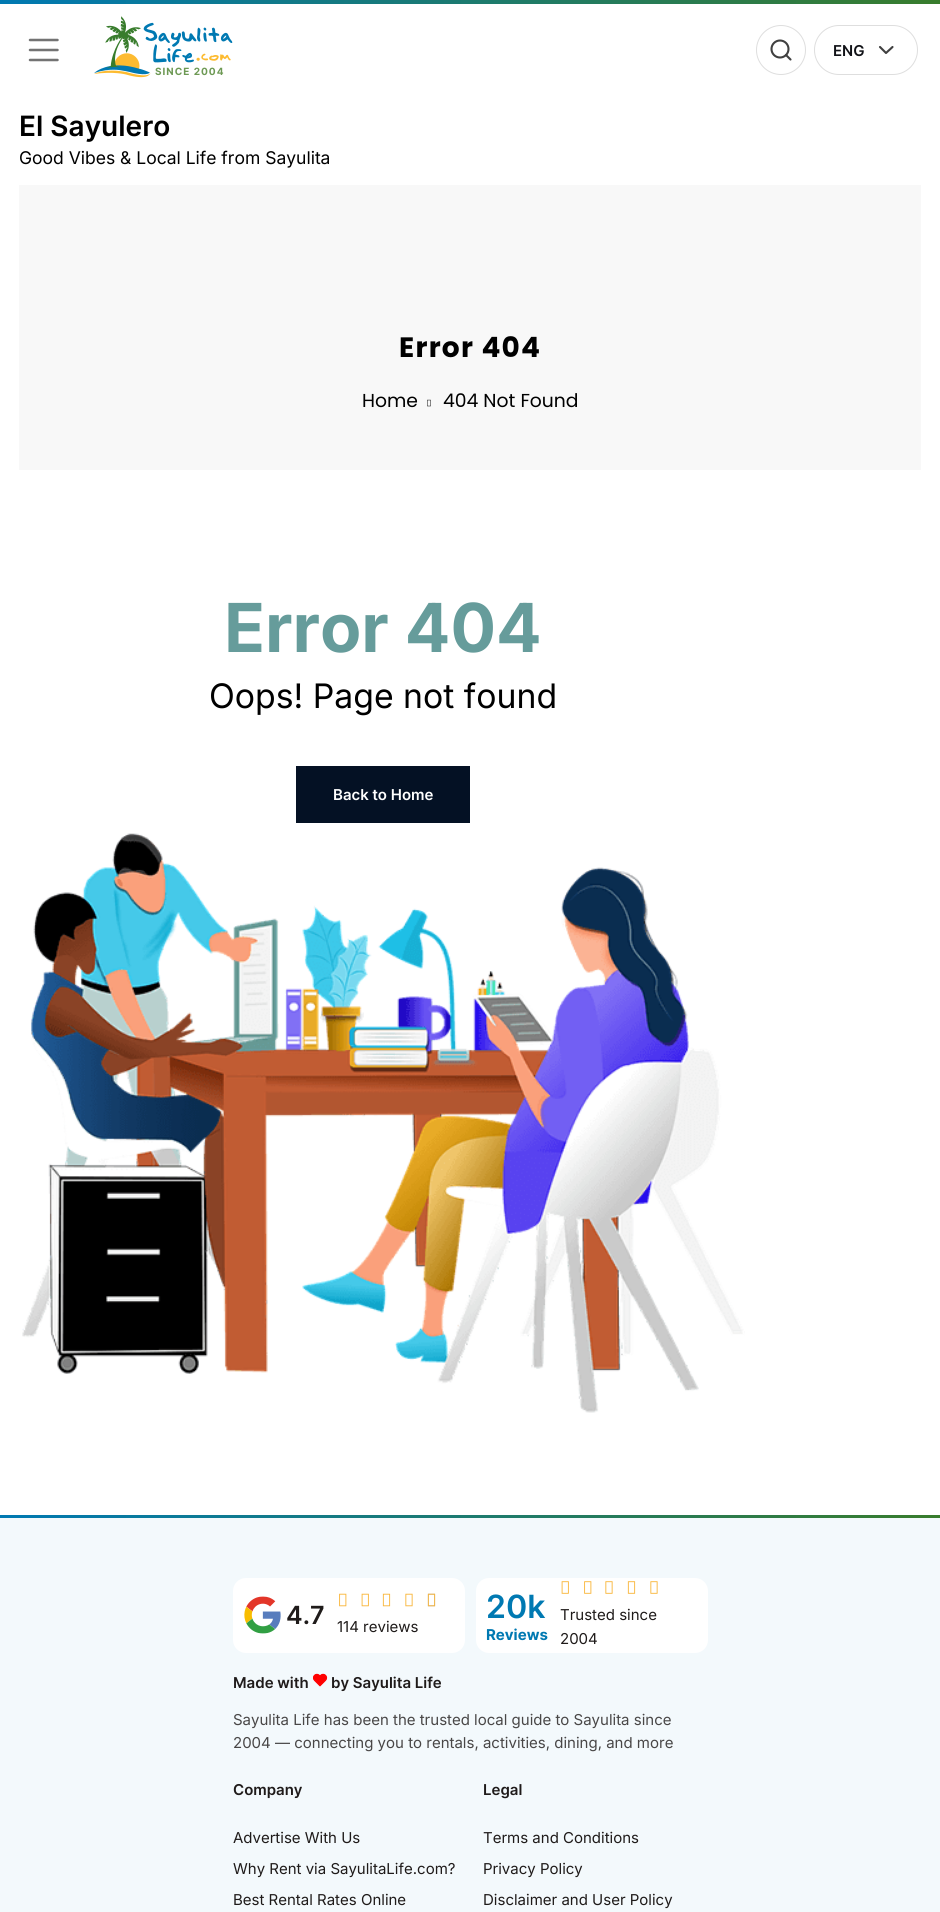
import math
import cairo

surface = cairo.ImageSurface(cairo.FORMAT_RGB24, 940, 1912)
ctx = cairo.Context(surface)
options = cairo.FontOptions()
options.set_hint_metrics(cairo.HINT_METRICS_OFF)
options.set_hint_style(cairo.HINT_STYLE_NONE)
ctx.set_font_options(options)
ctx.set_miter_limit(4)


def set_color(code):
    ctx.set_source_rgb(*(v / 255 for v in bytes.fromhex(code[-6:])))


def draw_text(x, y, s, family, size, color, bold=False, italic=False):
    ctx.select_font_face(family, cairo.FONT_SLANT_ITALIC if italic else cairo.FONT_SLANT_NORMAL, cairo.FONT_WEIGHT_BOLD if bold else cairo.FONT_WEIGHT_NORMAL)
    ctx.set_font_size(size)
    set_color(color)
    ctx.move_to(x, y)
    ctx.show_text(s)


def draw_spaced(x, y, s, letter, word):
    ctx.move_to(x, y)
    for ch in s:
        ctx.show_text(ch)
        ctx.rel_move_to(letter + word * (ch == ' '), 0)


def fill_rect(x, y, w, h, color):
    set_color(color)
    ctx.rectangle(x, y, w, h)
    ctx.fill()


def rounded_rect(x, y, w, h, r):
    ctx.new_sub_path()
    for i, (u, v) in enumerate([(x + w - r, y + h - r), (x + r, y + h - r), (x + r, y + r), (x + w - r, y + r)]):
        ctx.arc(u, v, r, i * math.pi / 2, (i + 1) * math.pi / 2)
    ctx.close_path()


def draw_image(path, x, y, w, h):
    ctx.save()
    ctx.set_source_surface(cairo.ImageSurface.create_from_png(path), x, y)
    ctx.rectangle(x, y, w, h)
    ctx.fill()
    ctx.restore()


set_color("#ffffff")
ctx.paint()
gradient = cairo.LinearGradient(0, 1.9, 940, 1.9)
gradient.add_color_stop_rgba(0, 0, 0.475, 0.698, 1)
gradient.add_color_stop_rgba(1, 0.22, 0.486, 0.173, 1)
ctx.set_source(gradient)
ctx.rectangle(0, 0, 940, 4)
ctx.fill()
ctx.new_path()
ctx.move_to(30, 40)
ctx.line_to(57.5, 40)
ctx.move_to(30, 50)
ctx.line_to(57.5, 50)
ctx.move_to(30, 60)
ctx.line_to(57.5, 60)
set_color("#737373")
ctx.set_line_width(2.5)
ctx.set_line_cap(cairo.LINE_CAP_ROUND)
ctx.stroke()
ctx.arc(781, 50, 24.5, 0, 2 * math.pi)
set_color("#dedede")
ctx.set_line_width(1)
ctx.set_line_cap(cairo.LINE_CAP_BUTT)
ctx.stroke()
ctx.arc(780, 49, 8.5, 0, 2 * math.pi)
set_color("#404040")
ctx.set_line_width(2.1)
ctx.stroke()
ctx.new_path()
ctx.move_to(790.5, 59.5)
ctx.line_to(786, 55)
ctx.set_line_cap(cairo.LINE_CAP_ROUND)
ctx.set_line_join(cairo.LINE_JOIN_ROUND)
ctx.stroke()
rounded_rect(814.5, 25.5, 103, 49, 24.5)
set_color("#dedede")
ctx.set_line_width(1)
ctx.set_line_cap(cairo.LINE_CAP_BUTT)
ctx.set_line_join(cairo.LINE_JOIN_MITER)
ctx.stroke()
draw_text(833, 56, "ENG", "Inter SemiBold", 15, "#111217")
ctx.new_path()
ctx.move_to(880, 47)
ctx.line_to(886, 53)
ctx.line_to(892.5, 47)
set_color("#404040")
ctx.set_line_width(2.1)
ctx.set_line_cap(cairo.LINE_CAP_ROUND)
ctx.set_line_join(cairo.LINE_JOIN_ROUND)
ctx.stroke()
draw_image("assets/img1.png", 94, 16, 139, 62)
ctx.select_font_face("Inter", cairo.FONT_SLANT_NORMAL, cairo.FONT_WEIGHT_BOLD)
ctx.set_font_size(10)
set_color("#6d9954")
draw_spaced(155, 75, "SINCE 2004", 1, 0)
draw_text(19, 136, "El Sayulero", "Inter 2 SemiBold", 28, "#000000")
draw_text(19, 164, "Good Vibes & Local Life from Sayulita", "Inter", 17.5, "#000000")
fill_rect(19, 185, 902, 285, "#f8f8f8")
ctx.select_font_face("Poppins", cairo.FONT_SLANT_NORMAL, cairo.FONT_WEIGHT_BOLD)
ctx.set_font_size(28)
set_color("#000000")
draw_spaced(399, 357, "Error 404", 1.25, 0)
draw_text(362, 407, "Home", "Poppins", 18.75, "#000000")
draw_image("assets/img2.png", 427, 399, 4, 8)
draw_text(443, 407, "404 Not Found", "Poppins", 18.75, "#000000")
draw_text(224, 652, "Error 404", "Inter 2", 67.5, "#669c9b", bold=True)
draw_text(209, 708, "Oops! Page not found", "Inter", 33.75, "#000000")
fill_rect(296, 766, 174, 57, "#041124")
draw_text(333, 800, "Back to Home", "Inter 2 SemiBold", 15, "#ffffff")
draw_image("assets/img3.png", 22, 833, 723, 580)
fill_rect(0, 1518, 940, 394, "#f3f9fc")
gradient = cairo.LinearGradient(0, 1516, 940, 1516)
gradient.add_color_stop_rgba(0, 0, 0.475, 0.698, 1)
gradient.add_color_stop_rgba(1, 0.22, 0.486, 0.173, 1)
ctx.set_source(gradient)
ctx.rectangle(0, 1515, 940, 3)
ctx.fill()
set_color("#ffffff")
rounded_rect(233, 1578, 232, 75, 13)
ctx.fill()
draw_image("assets/img4.png", 244, 1596, 37, 38)
draw_text(286, 1624, "4.7", "Inter SemiBold", 25, "#1f1b1a")
draw_image("assets/img5.png", 339, 1593, 8, 14)
draw_image("assets/img6.png", 361, 1593, 8, 14)
draw_image("assets/img7.png", 382, 1593, 9, 14)
draw_image("assets/img8.png", 405, 1593, 8, 14)
draw_image("assets/img9.png", 427, 1593, 9, 14)
draw_image("assets/img10.png", 427, 1593, 9, 14)
draw_text(337, 1632, "114 reviews", "Inter", 15, "#1f1b1a")
set_color("#ffffff")
rounded_rect(476, 1578, 232, 75, 13)
ctx.fill()
draw_text(486, 1618, "20k", "Inter SemiBold", 32, "#0079b2")
draw_text(486, 1640, "Reviews", "Inter", 15, "#0079b2", bold=True)
draw_image("assets/img11.png", 561, 1581, 8, 13)
draw_image("assets/img12.png", 584, 1581, 8, 13)
draw_image("assets/img13.png", 605, 1581, 8, 13)
draw_image("assets/img14.png", 627, 1581, 9, 13)
draw_image("assets/img13.png", 650, 1581, 8, 13)
draw_text(560, 1620, "Trusted since", "Inter", 15, "#1f1b1a")
draw_text(560, 1644, "2004", "Inter", 15, "#1f1b1a")
draw_text(233, 1688, "Made with", "Inter SemiBold", 15, "#1f1b1a")
draw_image("assets/img15.png", 313, 1673, 15, 14)
draw_text(331, 1688, "by Sayulita Life", "Inter SemiBold", 15, "#1f1b1a")
draw_text(233, 1725, "Sayulita Life has been the trusted local guide to Sayulita since", "Inter", 15, "#494747")
draw_text(233, 1748, "2004 — connecting you to rentals, activities, dining, and more", "Inter", 15, "#494747")
draw_text(233, 1795, "Company", "Inter SemiBold", 15, "#1f1b1a")
draw_text(233, 1843, "Advertise With Us", "Inter", 15, "#1f1b1a")
draw_text(233, 1874, "Why Rent via SayulitaLife.com?", "Inter", 15, "#1f1b1a")
draw_text(233, 1905, "Best Rental Rates Online", "Inter", 15, "#1f1b1a")
draw_text(483, 1795, "Legal", "Inter SemiBold", 15, "#1f1b1a")
draw_text(483, 1843, "Terms and Conditions", "Inter", 15, "#1f1b1a")
draw_text(483, 1874, "Privacy Policy", "Inter", 15, "#1f1b1a")
draw_text(483, 1905, "Disclaimer and User Policy", "Inter", 15, "#1f1b1a")
surface.write_to_png("output.png")
